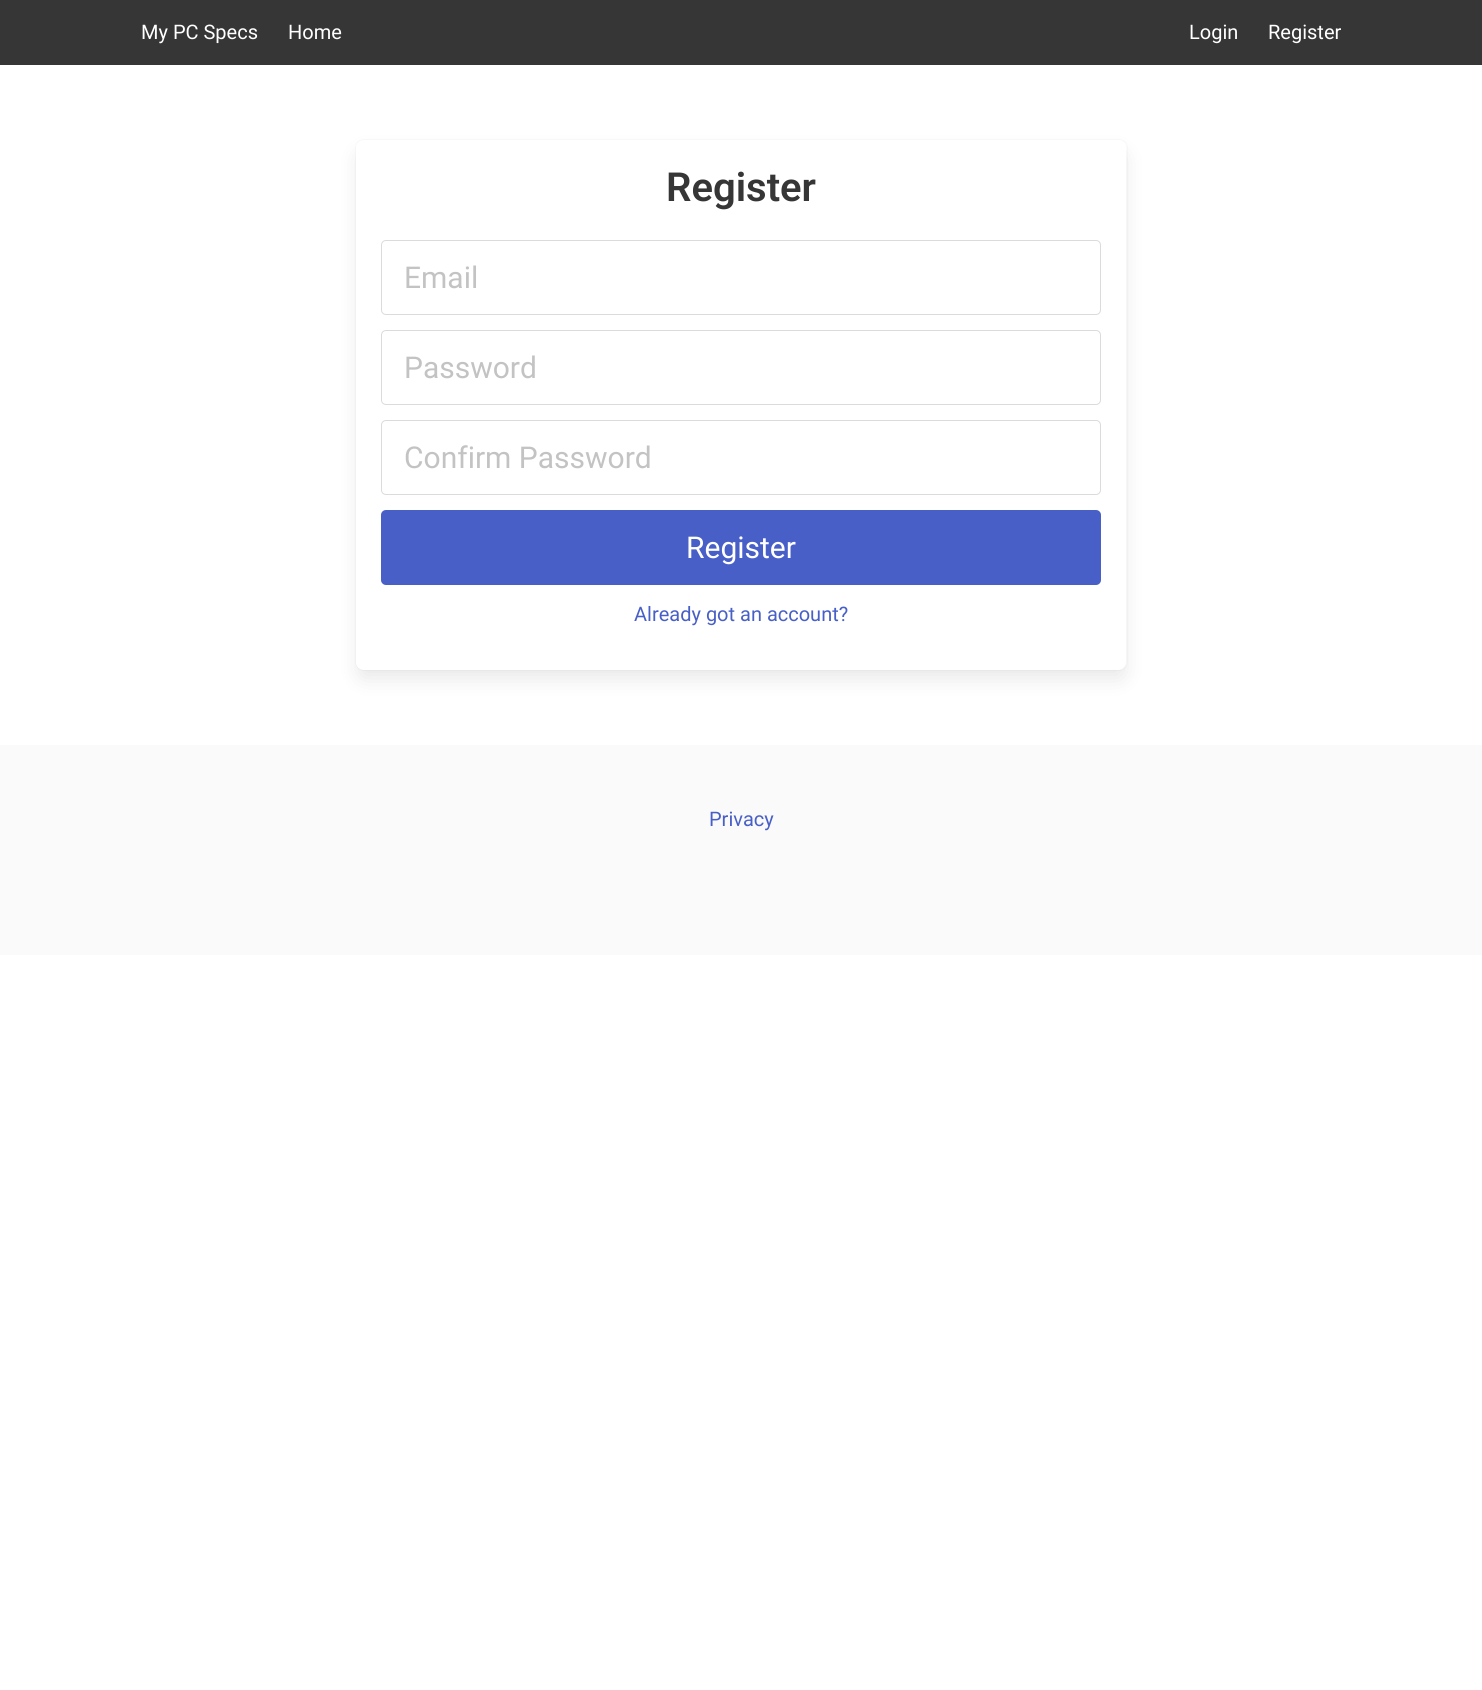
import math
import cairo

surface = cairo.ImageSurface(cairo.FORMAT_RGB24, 1482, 1690)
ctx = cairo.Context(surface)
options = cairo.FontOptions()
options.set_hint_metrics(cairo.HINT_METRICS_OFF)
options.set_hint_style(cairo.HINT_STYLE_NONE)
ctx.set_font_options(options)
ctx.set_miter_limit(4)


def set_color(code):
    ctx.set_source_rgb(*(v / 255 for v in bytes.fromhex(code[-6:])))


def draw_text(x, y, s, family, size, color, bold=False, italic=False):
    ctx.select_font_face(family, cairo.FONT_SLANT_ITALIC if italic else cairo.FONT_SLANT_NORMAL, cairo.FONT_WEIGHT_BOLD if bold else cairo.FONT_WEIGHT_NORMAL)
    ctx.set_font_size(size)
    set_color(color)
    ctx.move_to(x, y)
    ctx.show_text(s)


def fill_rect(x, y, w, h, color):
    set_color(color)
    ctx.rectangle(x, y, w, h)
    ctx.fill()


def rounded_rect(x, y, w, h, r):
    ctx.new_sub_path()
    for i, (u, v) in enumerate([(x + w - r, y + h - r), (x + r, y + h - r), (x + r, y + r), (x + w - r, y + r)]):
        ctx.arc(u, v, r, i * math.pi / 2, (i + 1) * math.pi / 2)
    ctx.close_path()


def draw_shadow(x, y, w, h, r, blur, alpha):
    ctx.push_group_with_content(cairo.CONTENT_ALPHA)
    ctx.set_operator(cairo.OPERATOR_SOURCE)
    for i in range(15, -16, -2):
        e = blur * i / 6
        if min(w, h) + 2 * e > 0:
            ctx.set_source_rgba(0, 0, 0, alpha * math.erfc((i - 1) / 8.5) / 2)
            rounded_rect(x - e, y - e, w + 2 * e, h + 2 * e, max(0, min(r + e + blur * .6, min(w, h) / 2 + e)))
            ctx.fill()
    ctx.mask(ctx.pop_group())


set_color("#ffffff")
ctx.paint()
fill_rect(0, 0, 1482, 65, "#363636")
draw_text(141, 39, "My PC Specs", "Roboto", 20, "#ffffff")
draw_text(288, 39, "Home", "Roboto", 20, "#ffffff")
draw_text(1189, 39, "Login", "Roboto", 20, "#ffffff")
draw_text(1268, 39, "Register", "Roboto", 20, "#ffffff")
rounded_rect(355.5, 139.5, 772, 531, 8.5)
set_color("#fafafa")
ctx.set_line_width(1)
ctx.stroke()
set_color("#0a0a0a")
draw_shadow(359, 153, 765, 525, 5, 10, 0.1)
set_color("#ffffff")
rounded_rect(356, 140, 770, 530, 8)
ctx.fill()
draw_text(666, 201, "Register", "Roboto SemiBold", 40, "#363636")
rounded_rect(381.5, 240.5, 719, 74, 4.5)
set_color("#dbdbdb")
ctx.stroke()
draw_text(404, 288, "Email", "Roboto", 30, "#c3c3c3")
rounded_rect(381.5, 330.5, 719, 74, 4.5)
set_color("#dbdbdb")
ctx.stroke()
draw_text(404, 378, "Password", "Roboto", 30, "#c3c3c3")
rounded_rect(381.5, 420.5, 719, 74, 4.5)
set_color("#dbdbdb")
ctx.stroke()
draw_text(404, 468, "Confirm Password", "Roboto", 30, "#c3c3c3")
set_color("#485fc7")
rounded_rect(381, 510, 720, 75, 5)
ctx.fill()
draw_text(686, 558, "Register", "Roboto", 30, "#ffffff")
draw_text(634, 621, "Already got an account?", "Roboto", 20, "#485fc7")
fill_rect(0, 745, 1482, 210, "#fafafa")
draw_text(709, 826, "Privacy", "Roboto", 20, "#485fc7")
surface.write_to_png("output.png")
